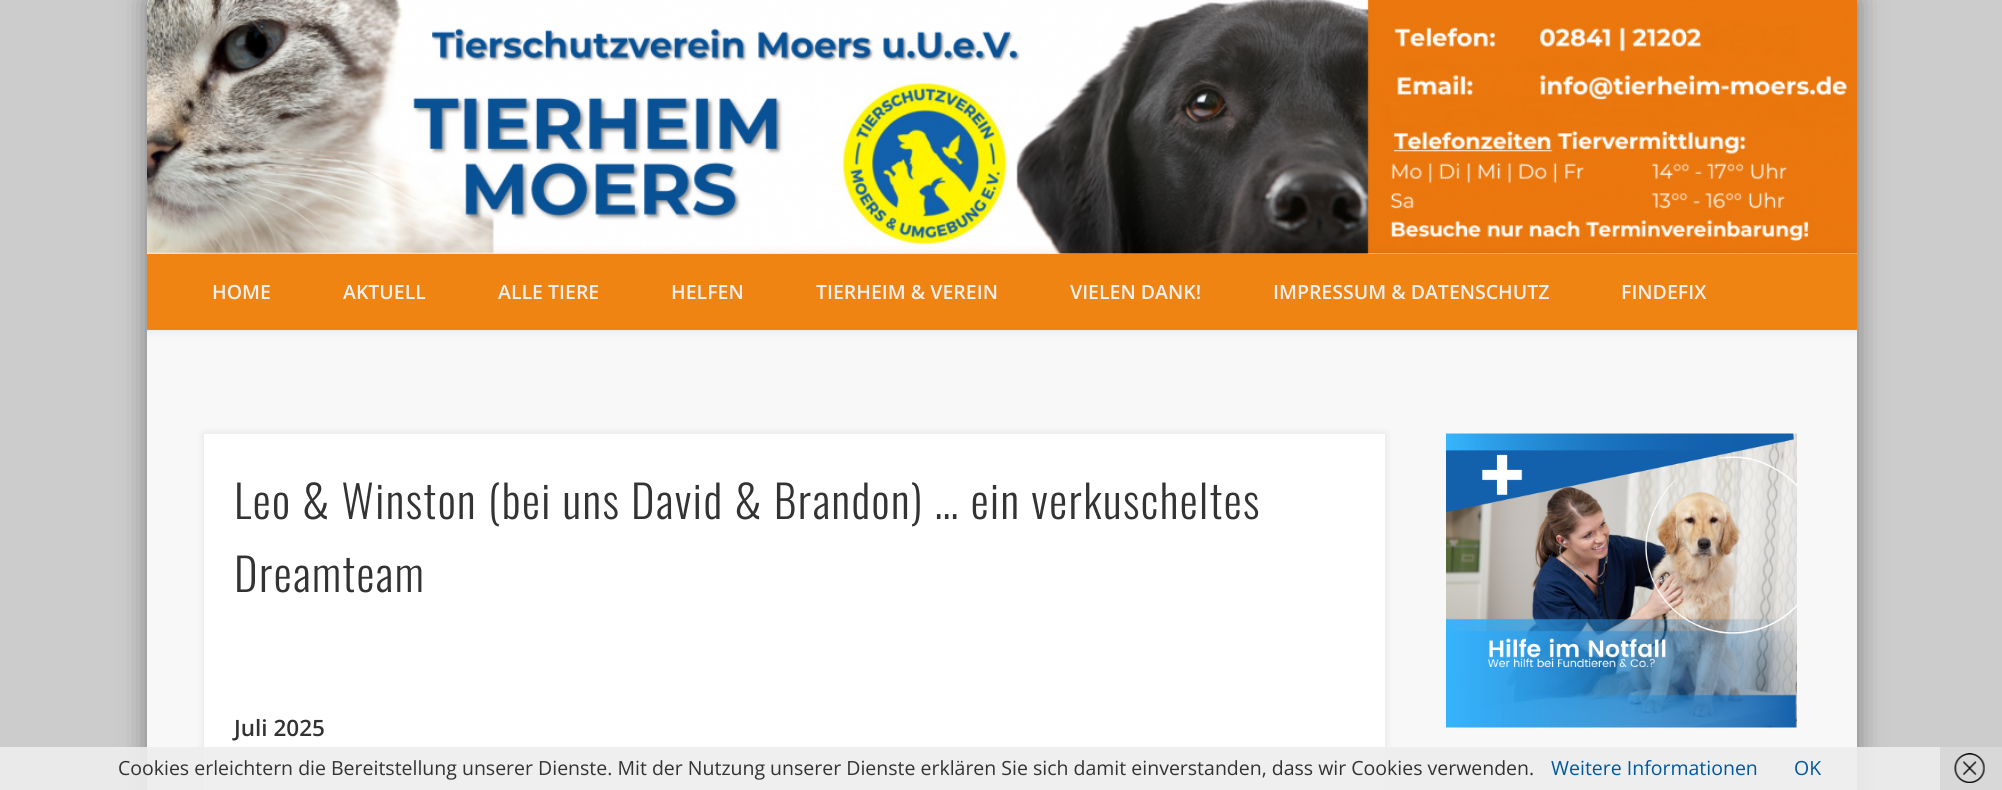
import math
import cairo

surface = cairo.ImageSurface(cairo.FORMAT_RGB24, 2002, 790)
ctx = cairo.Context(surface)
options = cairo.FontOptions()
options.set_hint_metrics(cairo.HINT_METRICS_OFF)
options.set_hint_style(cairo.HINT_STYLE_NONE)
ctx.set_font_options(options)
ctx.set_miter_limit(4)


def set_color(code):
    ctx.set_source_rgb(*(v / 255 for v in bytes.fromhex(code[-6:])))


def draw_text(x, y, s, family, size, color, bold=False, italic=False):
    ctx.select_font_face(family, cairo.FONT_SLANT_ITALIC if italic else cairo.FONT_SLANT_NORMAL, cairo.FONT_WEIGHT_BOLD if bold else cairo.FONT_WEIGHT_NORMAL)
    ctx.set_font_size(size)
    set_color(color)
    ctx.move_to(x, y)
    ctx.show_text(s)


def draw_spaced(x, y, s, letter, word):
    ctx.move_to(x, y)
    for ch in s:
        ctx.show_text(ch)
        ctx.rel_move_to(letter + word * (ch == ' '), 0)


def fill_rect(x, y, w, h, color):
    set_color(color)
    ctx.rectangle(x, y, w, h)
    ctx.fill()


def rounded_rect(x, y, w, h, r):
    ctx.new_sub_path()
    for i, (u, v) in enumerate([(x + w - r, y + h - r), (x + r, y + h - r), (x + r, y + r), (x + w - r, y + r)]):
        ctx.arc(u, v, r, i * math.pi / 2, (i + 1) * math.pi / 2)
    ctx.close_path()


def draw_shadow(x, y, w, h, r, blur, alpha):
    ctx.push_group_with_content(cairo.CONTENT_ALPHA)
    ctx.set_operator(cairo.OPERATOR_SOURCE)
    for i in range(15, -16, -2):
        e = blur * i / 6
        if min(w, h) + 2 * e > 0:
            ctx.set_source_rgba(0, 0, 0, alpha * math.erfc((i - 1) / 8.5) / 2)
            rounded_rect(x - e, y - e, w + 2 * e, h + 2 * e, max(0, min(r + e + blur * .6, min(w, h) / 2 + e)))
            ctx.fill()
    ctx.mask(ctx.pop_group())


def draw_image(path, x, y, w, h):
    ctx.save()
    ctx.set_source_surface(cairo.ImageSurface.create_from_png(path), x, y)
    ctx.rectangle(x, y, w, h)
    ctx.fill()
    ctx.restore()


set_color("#cccccc")
ctx.paint()
set_color("#000000")
draw_shadow(147, 0, 1710, 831, 0, 13.5, 0.4)
fill_rect(147, 253, 1710, 537, "#f8f8f8")
draw_image("assets/img1.png", 147, 0, 1710, 254)
ctx.save()
ctx.rectangle(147, 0, 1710, 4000)
ctx.clip()
set_color("#000000")
draw_shadow(147, 254, 1710, 76, 0, 5, 0.1)
ctx.restore()
fill_rect(147, 254, 1710, 76, "#ef8412")
draw_text(212, 299, "HOME", "Open Sans SemiBold", 19.5, "#f0f0f0")
draw_text(343, 299, "AKTUELL", "Open Sans SemiBold", 19.5, "#f0f0f0")
draw_text(498, 299, "ALLE TIERE", "Open Sans SemiBold", 19.5, "#f0f0f0")
draw_text(671, 299, "HELFEN", "Open Sans SemiBold", 19.5, "#f0f0f0")
draw_text(816, 299, "TIERHEIM & VEREIN", "Open Sans SemiBold", 19.5, "#f0f0f0")
draw_text(1070, 299, "VIELEN DANK!", "Open Sans SemiBold", 19.5, "#f0f0f0")
draw_text(1273, 299, "IMPRESSUM & DATENSCHUTZ", "Open Sans SemiBold", 19.5, "#f0f0f0")
draw_text(1621, 299, "FINDEFIX", "Open Sans SemiBold", 19.5, "#f0f0f0")
set_color("#000000")
draw_shadow(204, 434, 1181, 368, 0, 4, 0.1)
fill_rect(204, 434, 1181, 356, "#ffffff")
ctx.select_font_face("Oswald Light")
ctx.set_font_size(45)
set_color("#333333")
draw_spaced(234, 519, "Leo & Winston (bei uns David & Brandon) … ein verkuscheltes", 1.5, 0)
draw_spaced(234, 592, "Dreamteam", 1.5, 0)
draw_text(234, 736, "Juli 2025", "Open Sans SemiBold", 22.5, "#333333")
draw_image("assets/img2.png", 1446, 433, 351, 295)
ctx.set_source_rgba(0.933, 0.933, 0.933, 0.9)
ctx.rectangle(0, 747, 1940, 43)
ctx.fill()
draw_text(118, 775, "Cookies erleichtern die Bereitstellung unserer Dienste. Mit der Nutzung unserer Dienste erklären Sie sich damit einverstanden, dass wir Cookies verwenden.", "Open Sans", 19.5, "#333333")
draw_text(1551, 775, "Weitere Informationen", "Open Sans", 19.5, "#00589c")
draw_text(1794, 775, "OK", "Open Sans", 19.5, "#00589c")
fill_rect(1940, 747, 62, 43, "#d8d8d8")
draw_image("assets/img3.png", 1954, 753, 31, 30)
surface.write_to_png("output.png")
